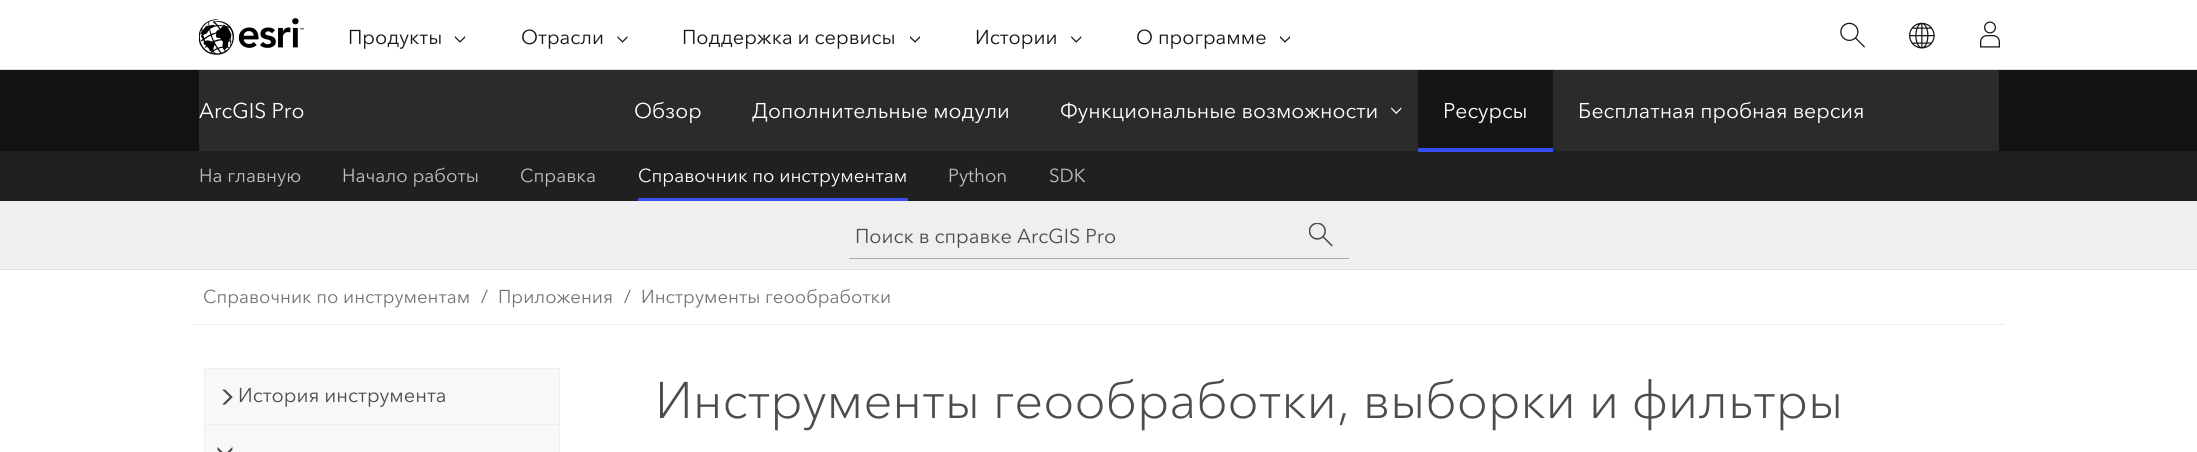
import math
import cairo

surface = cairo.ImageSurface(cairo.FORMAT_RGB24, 2197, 452)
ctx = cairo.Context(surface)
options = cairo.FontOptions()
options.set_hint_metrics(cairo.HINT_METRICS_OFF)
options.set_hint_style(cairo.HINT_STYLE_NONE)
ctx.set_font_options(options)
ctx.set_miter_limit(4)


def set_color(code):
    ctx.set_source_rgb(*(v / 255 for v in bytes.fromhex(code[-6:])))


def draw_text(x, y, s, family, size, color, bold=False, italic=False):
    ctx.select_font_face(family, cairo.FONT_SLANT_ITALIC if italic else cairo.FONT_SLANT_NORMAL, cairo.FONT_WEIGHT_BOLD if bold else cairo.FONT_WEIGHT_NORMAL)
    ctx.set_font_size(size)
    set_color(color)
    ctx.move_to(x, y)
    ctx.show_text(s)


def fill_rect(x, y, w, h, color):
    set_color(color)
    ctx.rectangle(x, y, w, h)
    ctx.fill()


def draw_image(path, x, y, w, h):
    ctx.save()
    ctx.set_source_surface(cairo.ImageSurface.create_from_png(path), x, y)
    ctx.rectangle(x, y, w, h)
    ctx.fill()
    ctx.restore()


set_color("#ffffff")
ctx.paint()
fill_rect(0, 69, 2197, 1, "#dfdfdf")
draw_image("assets/img1.png", 199, 18, 105, 37)
draw_text(348, 44, "Продукты", "Avenir Next", 20, "#151515")
draw_image("assets/img2.png", 455, 36, 10, 7)
draw_text(521, 44, "Отрасли", "Avenir Next", 20, "#151515")
draw_image("assets/img3.png", 617, 36, 11, 7)
draw_text(682, 44, "Поддержка и сервисы", "Avenir Next", 20, "#151515")
draw_image("assets/img2.png", 910, 36, 10, 7)
draw_text(975, 44, "Истории", "Avenir Next", 20, "#151515")
draw_image("assets/img4.png", 1071, 36, 11, 7)
draw_text(1136, 44, "О программе", "Avenir Next", 20, "#151515")
draw_image("assets/img2.png", 1280, 36, 10, 7)
draw_image("assets/img5.png", 1840, 22, 25, 26)
draw_image("assets/img6.png", 1909, 22, 26, 27)
draw_image("assets/img7.png", 1980, 21, 20, 27)
fill_rect(0, 70, 2197, 81, "#121212")
fill_rect(199, 70, 1800, 81, "#2b2b2b")
draw_text(199, 118, "ArcGIS Pro", "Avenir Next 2", 21.25, "#ffffff")
draw_text(634, 118, "Обзор", "Avenir Next", 21.25, "#ffffff")
draw_text(752, 118, "Дополнительные модули", "Avenir Next", 21.25, "#ffffff")
draw_text(1060, 118, "Функциональные возможности", "Avenir Next", 21.25, "#ffffff")
draw_image("assets/img8.png", 1391, 107, 11, 7)
fill_rect(1418, 70, 135, 78, "#151515")
fill_rect(0, 151, 2197, 50, "#202020")
fill_rect(1418, 148, 135, 4, "#394eee")
draw_text(1443, 118, "Ресурсы", "Avenir Next", 21.25, "#ffffff")
draw_text(1578, 118, "Бесплатная пробная версия", "Avenir Next", 21.25, "#ffffff")
draw_text(199, 182, "На главную", "Avenir Next", 18.75, "#bfbfbf")
draw_text(342, 182, "Начало работы", "Avenir Next", 18.75, "#bfbfbf")
draw_text(520, 182, "Справка", "Avenir Next", 18.75, "#bfbfbf")
fill_rect(638, 198, 270, 3, "#394eee")
draw_text(638, 182, "Справочник по инструментам", "Avenir Next", 18.75, "#ffffff")
draw_text(948, 182, "Python", "Avenir Next 2", 18.75, "#bfbfbf")
draw_text(1049, 182, "SDK", "Avenir Next 2", 18.75, "#bfbfbf")
fill_rect(0, 201, 2197, 68, "#efefef")
fill_rect(0, 269, 2197, 1, "#e0e0e0")
set_color("#a9a9a9")
ctx.new_path()
ctx.move_to(849, 258)
ctx.line_to(849, 259)
ctx.line_to(1349, 259)
ctx.line_to(1349, 215)
ctx.line_to(1349, 258)
ctx.close_path()
ctx.fill()
draw_text(855, 243, "Поиск в справке", "Avenir Next", 20, "#4c4c4c")
draw_text(1017, 243, "ArcGIS Pro", "Avenir Next 2", 20, "#4c4c4c")
draw_image("assets/img9.png", 1309, 223, 24, 24)
fill_rect(193, 324, 1812, 1, "#ededed")
draw_text(203, 303, "Справочник по инструментам", "Avenir Next", 18.6, "#757575")
draw_text(481, 303, "/", "Avenir Next 2", 18.6, "#6e6e6e")
draw_text(498, 303, "Приложения", "Avenir Next", 18.6, "#757575")
draw_text(624, 303, "/", "Avenir Next 2", 18.6, "#6e6e6e")
draw_text(641, 303, "Инструменты геообработки", "Avenir Next", 18.6, "#757575")
fill_rect(559, 368, 1, 84, "#efefef")
fill_rect(204, 368, 1, 84, "#efefef")
fill_rect(205, 369, 354, 55, "#f8f8f8")
fill_rect(205, 368, 354, 1, "#efefef")
draw_image("assets/img10.png", 222, 389, 11, 16)
draw_text(238, 402, "История инструмента", "Avenir Next", 20, "#4c4c4c")
fill_rect(205, 425, 354, 27, "#f8f8f8")
fill_rect(205, 424, 354, 1, "#efefef")
draw_image("assets/img11.png", 217, 447, 16, 5)
draw_text(655, 418, "Инструменты геообработки, выборки и фильтры", "Avenir Next Light", 51.1, "#4c4c4c")
surface.write_to_png("output.png")
